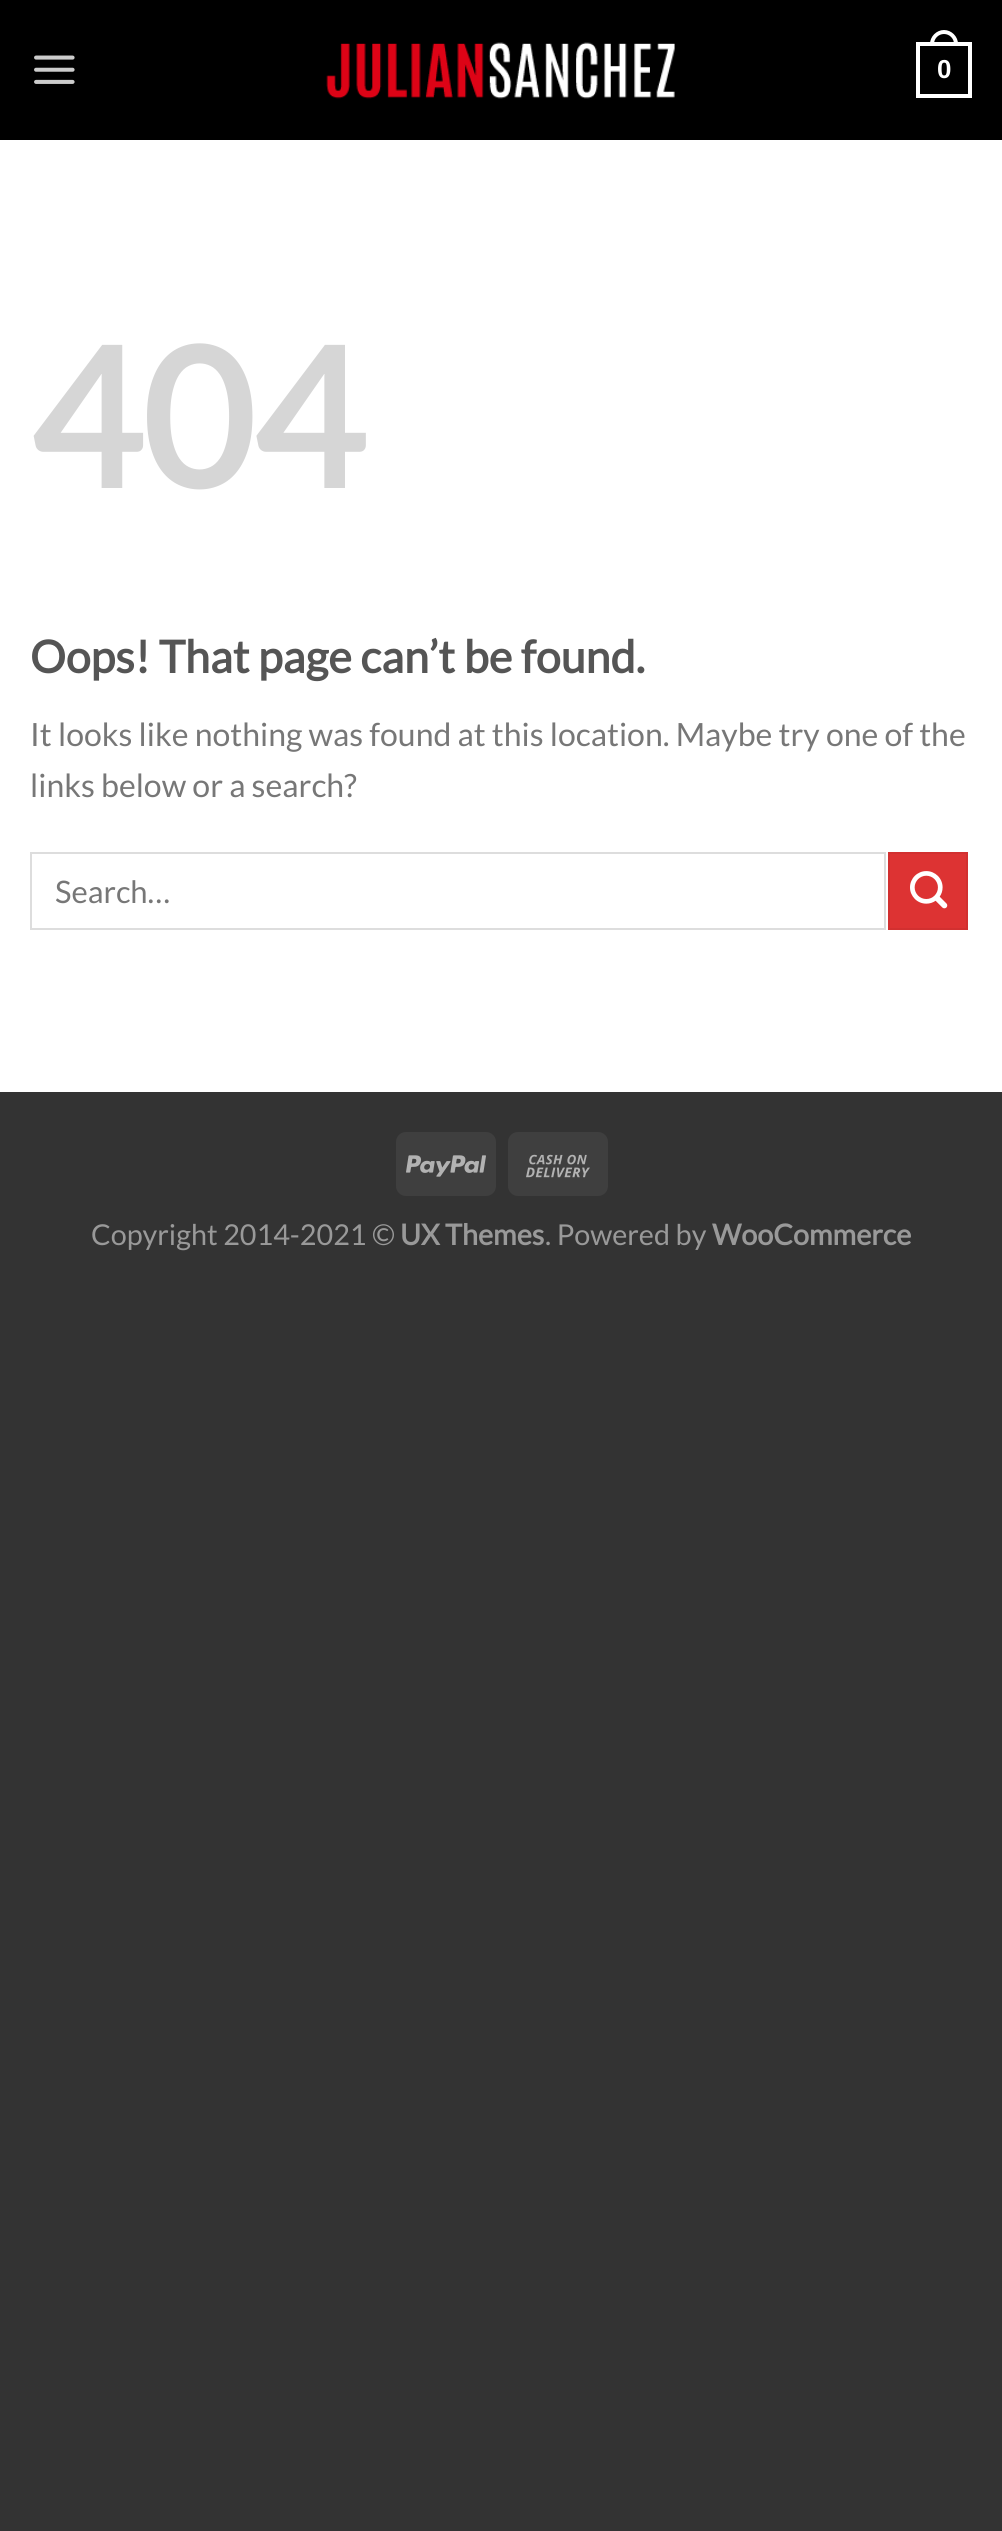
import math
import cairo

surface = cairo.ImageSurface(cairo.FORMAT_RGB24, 1002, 2531)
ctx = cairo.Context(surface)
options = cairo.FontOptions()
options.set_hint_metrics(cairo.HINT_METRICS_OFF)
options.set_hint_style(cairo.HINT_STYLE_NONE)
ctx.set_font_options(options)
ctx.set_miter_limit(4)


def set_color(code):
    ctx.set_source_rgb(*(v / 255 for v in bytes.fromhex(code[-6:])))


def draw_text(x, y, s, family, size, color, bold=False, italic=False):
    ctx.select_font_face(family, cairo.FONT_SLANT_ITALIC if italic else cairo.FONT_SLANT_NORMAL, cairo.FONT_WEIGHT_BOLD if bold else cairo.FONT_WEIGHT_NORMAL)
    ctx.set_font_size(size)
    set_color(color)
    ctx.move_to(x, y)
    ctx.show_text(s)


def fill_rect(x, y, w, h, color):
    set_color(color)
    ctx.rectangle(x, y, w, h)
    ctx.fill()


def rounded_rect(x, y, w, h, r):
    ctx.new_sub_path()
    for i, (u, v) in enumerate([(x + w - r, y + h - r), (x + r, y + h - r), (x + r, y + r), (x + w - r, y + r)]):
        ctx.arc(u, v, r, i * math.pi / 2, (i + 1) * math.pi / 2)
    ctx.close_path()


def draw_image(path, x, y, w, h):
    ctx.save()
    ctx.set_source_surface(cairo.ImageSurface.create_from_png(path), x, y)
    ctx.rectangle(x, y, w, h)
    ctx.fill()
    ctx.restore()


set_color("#333333")
ctx.paint()
fill_rect(0, 140, 1002, 952, "#ffffff")
fill_rect(0, 0, 1002, 140, "#000000")
draw_image("assets/img1.png", 34, 55, 41, 29)
draw_image("assets/img2.png", 326, 42, 349, 57)
ctx.rectangle(918, 44, 52, 52)
set_color("#ffffff")
ctx.set_line_width(4)
ctx.stroke()
ctx.set_fill_rule(cairo.FILL_RULE_EVEN_ODD)
ctx.new_path()
ctx.move_to(944, 30)
ctx.curve_to(951.5, 30, 958, 36.5, 958, 44)
ctx.line_to(958, 46)
ctx.line_to(930, 46)
ctx.line_to(930, 44)
ctx.curve_to(930, 36.5, 936.5, 30, 944, 30)
ctx.close_path()
ctx.move_to(944, 34)
ctx.curve_to(949.5, 34, 954, 38.5, 954, 44)
ctx.line_to(954, 46)
ctx.line_to(934, 46)
ctx.line_to(934, 44)
ctx.curve_to(934, 38.5, 938.5, 34, 944, 34)
ctx.close_path()
ctx.fill()
draw_text(937, 78, "0", "Liberation Sans", 26, "#ffffff", bold=True)
draw_text(30, 488, "404", "Lato", 192, "#d6d6d6", bold=True)
draw_text(30, 673, "Oops! That page can’t be found.", "Lato", 44.75, "#555555", bold=True)
draw_text(30, 746, "It looks like nothing was found at this location. Maybe try one of the", "Lato", 32, "#777777")
draw_text(30, 797, "links below or a search?", "Lato", 32, "#777777")
ctx.rectangle(31, 853, 854, 76)
set_color("#dddddd")
ctx.set_line_width(2)
ctx.stroke()
draw_text(55, 903, "Search…", "Lato", 31, "#777777")
set_color("#dd3333")
ctx.rectangle(889, 853, 78, 76)
ctx.fill_preserve()
set_color("#d23030")
ctx.stroke()
draw_image("assets/img3.png", 910, 871, 38, 38)
set_color("#3f3f3f")
rounded_rect(396, 1132, 100, 64, 10)
ctx.fill()
draw_image("assets/img4.png", 406, 1155, 80, 22)
rounded_rect(508, 1132, 100, 64, 10)
ctx.fill()
draw_image("assets/img5.png", 526, 1154, 64, 24)
draw_text(91, 1245, "Copyright 2014-2021 ©", "Lato", 28.75, "#999999")
draw_text(400, 1245, "UX Themes", "Lato", 28.75, "#999999", bold=True)
draw_text(545, 1245, ". Powered by", "Lato", 28.75, "#999999")
draw_text(712, 1245, "WooCommerce", "Lato", 28.75, "#999999", bold=True)
surface.write_to_png("output.png")
